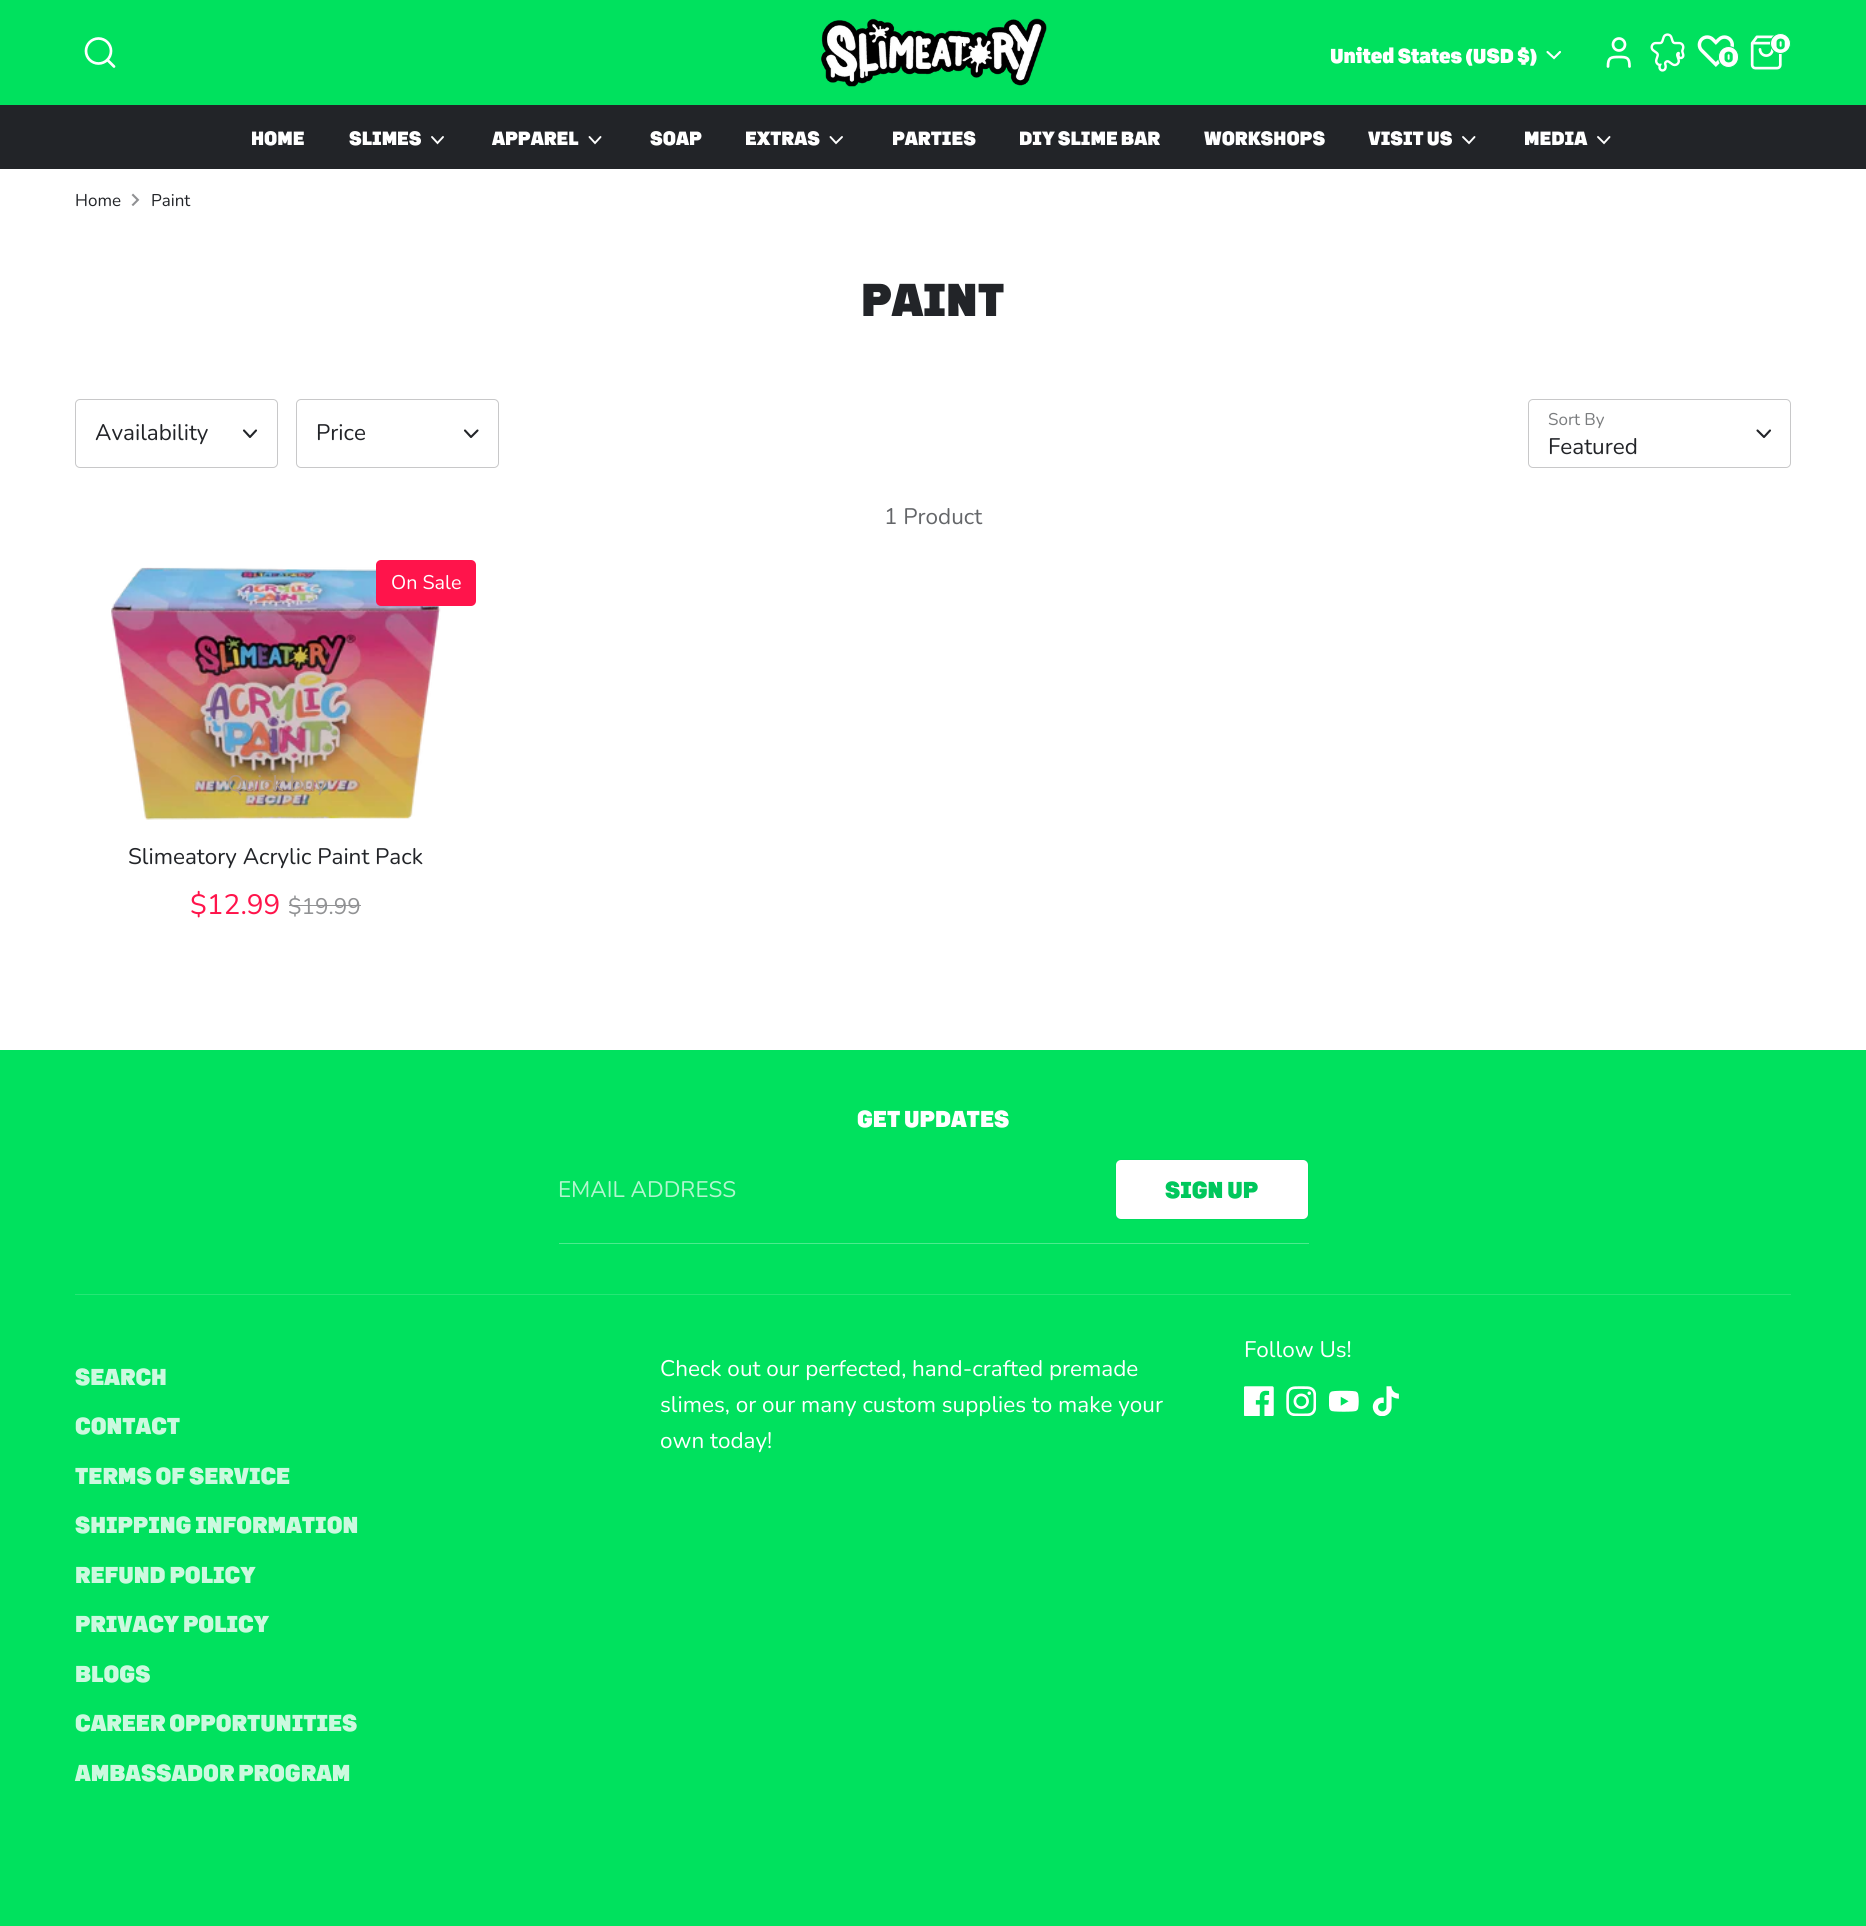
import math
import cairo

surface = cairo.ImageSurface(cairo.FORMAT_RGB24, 1866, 1926)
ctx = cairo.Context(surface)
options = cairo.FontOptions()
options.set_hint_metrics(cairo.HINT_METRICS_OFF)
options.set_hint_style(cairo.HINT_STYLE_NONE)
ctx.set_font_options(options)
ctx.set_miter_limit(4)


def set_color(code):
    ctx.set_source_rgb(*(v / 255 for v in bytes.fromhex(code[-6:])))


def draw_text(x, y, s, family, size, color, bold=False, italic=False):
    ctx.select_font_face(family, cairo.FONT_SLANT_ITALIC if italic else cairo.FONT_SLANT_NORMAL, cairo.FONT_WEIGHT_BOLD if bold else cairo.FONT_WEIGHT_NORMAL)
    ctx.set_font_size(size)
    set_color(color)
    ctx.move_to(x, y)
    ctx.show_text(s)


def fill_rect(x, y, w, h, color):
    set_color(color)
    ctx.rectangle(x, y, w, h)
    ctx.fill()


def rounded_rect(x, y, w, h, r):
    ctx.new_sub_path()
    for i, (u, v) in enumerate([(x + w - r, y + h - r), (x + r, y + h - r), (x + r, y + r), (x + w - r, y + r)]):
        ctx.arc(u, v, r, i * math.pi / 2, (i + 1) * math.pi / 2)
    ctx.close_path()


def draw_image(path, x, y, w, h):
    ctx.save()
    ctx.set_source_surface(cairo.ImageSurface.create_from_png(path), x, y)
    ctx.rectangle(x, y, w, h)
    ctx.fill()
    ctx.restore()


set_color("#ffffff")
ctx.paint()
fill_rect(0, 0, 1866, 105, "#00e15e")
ctx.arc(98.5, 51, 12.5, 0, 2 * math.pi)
set_color("#ffffff")
ctx.set_line_width(2.7)
ctx.stroke()
ctx.new_path()
ctx.move_to(114, 66.5)
ctx.line_to(107.5, 60)
ctx.set_line_cap(cairo.LINE_CAP_ROUND)
ctx.set_line_join(cairo.LINE_JOIN_ROUND)
ctx.stroke()
draw_image("assets/img1.png", 821, 18, 226, 69)
ctx.new_path()
ctx.move_to(1629.5, 66.5)
ctx.curve_to(1629.5, 57.5, 1627, 57, 1619, 57)
ctx.curve_to(1610.5, 57, 1608, 57.5, 1608, 66.5)
ctx.stroke()
ctx.arc(1619, 44.5, 6, 0, 2 * math.pi)
ctx.set_line_cap(cairo.LINE_CAP_BUTT)
ctx.set_line_join(cairo.LINE_JOIN_MITER)
ctx.stroke()
draw_image("assets/img2.png", 1650, 33, 35, 39)
draw_image("assets/img3.png", 1750, 35, 32, 35)
ctx.arc(1780.5, 43.5, 10, 0, 2 * math.pi)
ctx.fill_preserve()
set_color("#00e15e")
ctx.set_line_width(1)
ctx.stroke()
draw_text(1776, 49, "0", "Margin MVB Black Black", 14, "#00e15e")
draw_text(1330, 63, "United States (USD $)", "Margin MVB Black Black", 19.75, "#ffffff")
ctx.new_path()
ctx.move_to(1547.5, 52)
ctx.line_to(1554, 58)
ctx.line_to(1560, 52)
ctx.set_line_width(2.1)
ctx.set_line_cap(cairo.LINE_CAP_ROUND)
ctx.stroke()
draw_image("assets/img4.png", 1697, 35, 37, 32)
rounded_rect(1718.5, 46.5, 20, 21, 10)
ctx.fill_preserve()
set_color("#00e15e")
ctx.set_line_width(1)
ctx.set_line_cap(cairo.LINE_CAP_BUTT)
ctx.stroke()
draw_text(1724, 62, "0", "Margin MVB Black Black", 14, "#00e15e")
fill_rect(0, 105, 1866, 64, "#222428")
draw_text(251, 145, "HOME", "Margin MVB Black Black", 18.75, "#ffffff")
draw_text(349, 145, "SLIMES", "Margin MVB Black Black", 18.75, "#ffffff")
ctx.new_path()
ctx.move_to(432, 137)
ctx.line_to(437.5, 143)
ctx.line_to(443, 137)
ctx.set_line_width(1.9)
ctx.set_line_cap(cairo.LINE_CAP_ROUND)
ctx.stroke()
draw_text(492, 145, "APPAREL", "Margin MVB Black Black", 18.75, "#ffffff")
ctx.new_path()
ctx.move_to(589.5, 137)
ctx.line_to(595, 143)
ctx.line_to(600.5, 137)
ctx.stroke()
draw_text(650, 145, "SOAP", "Margin MVB Black Black", 18.75, "#ffffff")
draw_text(745, 145, "EXTRAS", "Margin MVB Black Black", 18.75, "#ffffff")
ctx.new_path()
ctx.move_to(830.5, 137)
ctx.line_to(836, 143)
ctx.line_to(842, 137)
ctx.stroke()
draw_text(892, 145, "PARTIES", "Margin MVB Black Black", 18.75, "#ffffff")
draw_text(1019, 145, "DIY SLIME BAR", "Margin MVB Black Black", 18.75, "#ffffff")
draw_text(1204, 145, "WORKSHOPS", "Margin MVB Black Black", 18.75, "#ffffff")
draw_text(1368, 145, "VISIT US", "Margin MVB Black Black", 18.75, "#ffffff")
ctx.new_path()
ctx.move_to(1463, 137)
ctx.line_to(1469, 143)
ctx.line_to(1474.5, 137)
ctx.stroke()
draw_text(1524, 145, "MEDIA", "Margin MVB Black Black", 18.75, "#ffffff")
ctx.new_path()
ctx.move_to(1598, 137)
ctx.line_to(1604, 143)
ctx.line_to(1609.5, 137)
ctx.stroke()
draw_text(75, 206, "Home", "Nunito", 17, "#222428")
draw_image("assets/img5.png", 131, 193, 9, 13)
draw_text(151, 206, "Paint", "Nunito", 17, "#222428")
draw_text(861, 316, "PAINT", "Margin MVB Black Black", 45, "#222428")
rounded_rect(75.5, 399.5, 202, 68, 4.5)
set_color("#c8c8c9")
ctx.set_line_width(1)
ctx.set_line_cap(cairo.LINE_CAP_BUTT)
ctx.stroke()
draw_text(95, 440, "Availability", "Nunito", 22.5, "#222428")
ctx.new_path()
ctx.move_to(244, 430.5)
ctx.line_to(250, 437)
ctx.line_to(256, 430.5)
ctx.set_line_width(2.1)
ctx.set_line_cap(cairo.LINE_CAP_ROUND)
ctx.set_line_join(cairo.LINE_JOIN_ROUND)
ctx.stroke()
rounded_rect(296.5, 399.5, 202, 68, 4.5)
set_color("#c8c8c9")
ctx.set_line_width(1)
ctx.set_line_cap(cairo.LINE_CAP_BUTT)
ctx.set_line_join(cairo.LINE_JOIN_MITER)
ctx.stroke()
draw_text(316, 440, "Price", "Nunito", 22.5, "#222428")
ctx.new_path()
ctx.move_to(465, 430.5)
ctx.line_to(471, 437)
ctx.line_to(477.5, 430.5)
ctx.set_line_width(2.1)
ctx.set_line_cap(cairo.LINE_CAP_ROUND)
ctx.set_line_join(cairo.LINE_JOIN_ROUND)
ctx.stroke()
rounded_rect(1528.5, 399.5, 262, 68, 4.5)
set_color("#c8c8c9")
ctx.set_line_width(1)
ctx.set_line_cap(cairo.LINE_CAP_BUTT)
ctx.set_line_join(cairo.LINE_JOIN_MITER)
ctx.stroke()
draw_text(1548, 425, "Sort By", "Nunito", 17, "#7a7c7e")
ctx.new_path()
ctx.move_to(1757.5, 430.5)
ctx.line_to(1764, 437)
ctx.line_to(1770, 430.5)
set_color("#222428")
ctx.set_line_width(2.1)
ctx.set_line_cap(cairo.LINE_CAP_ROUND)
ctx.set_line_join(cairo.LINE_JOIN_ROUND)
ctx.stroke()
draw_text(1548, 454, "Featured", "Nunito", 22.5, "#222428")
draw_text(884, 524, "1 Product", "Nunito", 22.5, "#646669")
draw_image("assets/img6.png", 111, 567, 330, 253)
set_color("#ff144b")
rounded_rect(376, 560, 100, 46, 5)
ctx.fill()
draw_text(391, 589, "On Sale", "Nunito", 19.75, "#ffffff")
draw_text(190, 914, "$12.99", "Nunito", 28, "#ff144b")
draw_text(288, 914, "$19.99", "Nunito", 22.5, "#919294")
fill_rect(289, 905, 72, 1, "#919294")
draw_text(227, 791, "Quick buy", "Nunito", 22.5, "#b1997f")
draw_text(128, 864, "Slimeatory Acrylic Paint Pack", "Nunito", 22.5, "#222428")
fill_rect(0, 1050, 1866, 876, "#00e15e")
draw_text(857, 1127, "GET UPDATES", "Margin MVB Black Black", 22.5, "#ffffff")
fill_rect(559, 1243, 750, 1, "#4dea8e")
draw_text(558, 1197, "EMAIL ADDRESS", "Nunito", 22.5, "#b3f6cf")
rounded_rect(1115.5, 1159.5, 193, 60, 5.5)
set_color("#00db5e")
ctx.set_line_width(1)
ctx.set_line_cap(cairo.LINE_CAP_BUTT)
ctx.set_line_join(cairo.LINE_JOIN_MITER)
ctx.stroke()
set_color("#ffffff")
rounded_rect(1116, 1160, 192, 59, 5)
ctx.fill()
draw_text(1165, 1198, "SIGN UP", "Margin MVB Black Black", 22.5, "#00c75c")
fill_rect(75, 1294, 1716, 1, "#26e676")
draw_text(1244, 1357, "Follow Us!", "Nunito", 22.5, "#ffffff")
draw_image("assets/img7.png", 1244, 1386, 30, 30)
draw_image("assets/img8.png", 1286, 1386, 30, 30)
draw_image("assets/img9.png", 1329, 1390, 30, 22)
draw_image("assets/img10.png", 1372, 1386, 27, 30)
draw_text(75, 1385, "SEARCH", "Margin MVB Black Black", 22.5, "#ccf9df")
draw_text(75, 1434, "CONTACT", "Margin MVB Black Black", 22.5, "#ccf9df")
draw_text(75, 1484, "TERMS OF SERVICE", "Margin MVB Black Black", 22.5, "#ccf9df")
draw_text(75, 1533, "SHIPPING INFORMATION", "Margin MVB Black Black", 22.5, "#ccf9df")
draw_text(75, 1583, "REFUND POLICY", "Margin MVB Black Black", 22.5, "#ccf9df")
draw_text(75, 1632, "PRIVACY POLICY", "Margin MVB Black Black", 22.5, "#ccf9df")
draw_text(75, 1682, "BLOGS", "Margin MVB Black Black", 22.5, "#ccf9df")
draw_text(75, 1731, "CAREER OPPORTUNITIES", "Margin MVB Black Black", 22.5, "#ccf9df")
draw_text(75, 1781, "AMBASSADOR PROGRAM", "Margin MVB Black Black", 22.5, "#ccf9df")
draw_text(660, 1376, "Check out our perfected, hand-crafted premade", "Nunito", 22.5, "#ffffff")
draw_text(660, 1412, "slimes, or our many custom supplies to make your", "Nunito", 22.5, "#ffffff")
draw_text(660, 1448, "own today!", "Nunito", 22.5, "#ffffff")
surface.write_to_png("output.png")
